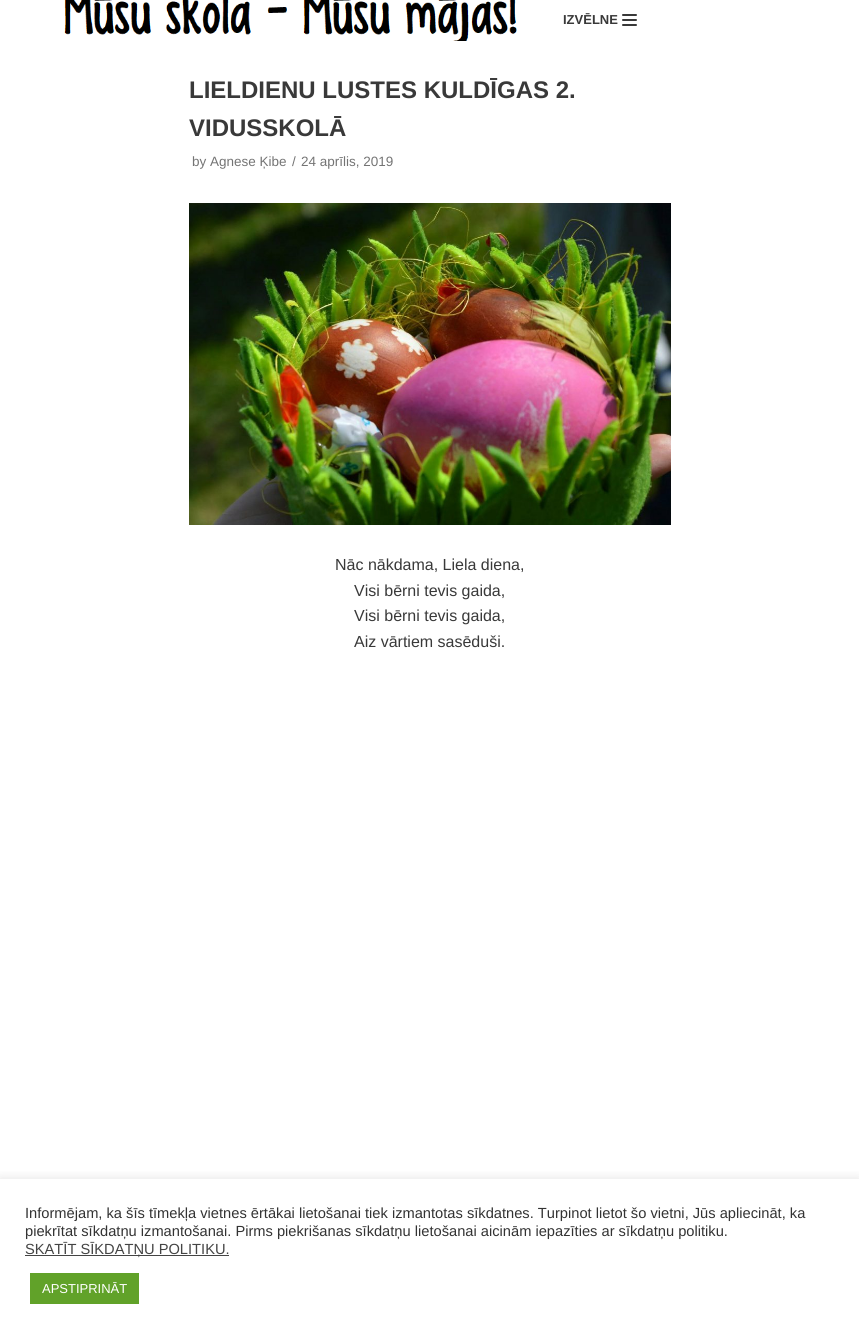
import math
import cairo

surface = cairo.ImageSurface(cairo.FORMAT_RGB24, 859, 1334)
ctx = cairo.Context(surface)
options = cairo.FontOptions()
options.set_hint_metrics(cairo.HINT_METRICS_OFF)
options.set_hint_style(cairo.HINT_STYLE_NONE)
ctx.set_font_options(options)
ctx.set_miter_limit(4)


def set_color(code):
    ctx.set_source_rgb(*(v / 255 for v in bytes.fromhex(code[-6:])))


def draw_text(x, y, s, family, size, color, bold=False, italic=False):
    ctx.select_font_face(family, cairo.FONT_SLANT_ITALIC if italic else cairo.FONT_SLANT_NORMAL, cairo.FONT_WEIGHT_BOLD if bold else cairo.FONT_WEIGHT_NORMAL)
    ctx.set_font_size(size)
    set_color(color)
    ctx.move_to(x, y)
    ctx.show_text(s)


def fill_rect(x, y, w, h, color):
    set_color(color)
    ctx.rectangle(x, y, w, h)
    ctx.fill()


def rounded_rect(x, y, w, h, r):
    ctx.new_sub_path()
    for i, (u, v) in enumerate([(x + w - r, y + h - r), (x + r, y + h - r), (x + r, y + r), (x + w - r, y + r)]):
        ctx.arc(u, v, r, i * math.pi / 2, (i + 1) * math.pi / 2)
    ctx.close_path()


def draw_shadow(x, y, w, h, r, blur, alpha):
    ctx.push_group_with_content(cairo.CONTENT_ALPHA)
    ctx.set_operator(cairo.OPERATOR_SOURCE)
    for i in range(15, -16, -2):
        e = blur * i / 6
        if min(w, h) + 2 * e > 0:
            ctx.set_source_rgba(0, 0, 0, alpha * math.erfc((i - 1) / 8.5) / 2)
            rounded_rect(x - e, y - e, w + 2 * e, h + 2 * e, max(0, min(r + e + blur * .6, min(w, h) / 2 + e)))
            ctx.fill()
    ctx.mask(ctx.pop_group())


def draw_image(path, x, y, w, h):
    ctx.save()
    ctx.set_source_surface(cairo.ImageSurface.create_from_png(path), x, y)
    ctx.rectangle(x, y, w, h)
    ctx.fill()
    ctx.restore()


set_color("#ffffff")
ctx.paint()
draw_image("assets/img1.png", 64, 0, 453, 41)
draw_text(563, 24, "IZVĒLNE", "Liberation Sans", 13, "#393939", bold=True)
rounded_rect(622, 14, 15, 2, 1)
ctx.fill()
rounded_rect(622, 19, 15, 2, 1)
ctx.fill()
rounded_rect(622, 24, 15, 2, 1)
ctx.fill()
draw_text(189, 98, "LIELDIENU LUSTES KULDĪGAS 2.", "Liberation Sans", 24, "#393939", bold=True)
draw_text(189, 136, "VIDUSSKOLĀ", "Liberation Sans", 24, "#393939", bold=True)
draw_text(192, 166, "by Agnese Ķibe", "Liberation Sans", 13.5, "#747474")
draw_text(292, 166, "/", "Liberation Sans", 13.5, "#747474")
draw_text(301, 166, "24 aprīlis, 2019", "Liberation Sans", 13.5, "#747474")
draw_image("assets/img2.png", 189, 203, 482, 322)
draw_text(335, 570, "Nāc nākdama, Liela diena,", "Liberation Sans", 16, "#393939")
draw_text(354, 596, "Visi bērni tevis gaida,", "Liberation Sans", 16, "#393939")
draw_text(354, 621, "Visi bērni tevis gaida,", "Liberation Sans", 16, "#393939")
draw_text(354, 647, "Aiz vārtiem sasēduši.", "Liberation Sans", 16, "#393939")
ctx.save()
ctx.rectangle(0, 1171, 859, 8)
ctx.clip()
set_color("#acabab")
draw_shadow(0, 1178, 859, 155, 0, 5, 0.3)
ctx.restore()
draw_text(25, 1218, "Informējam, ka šīs tīmekļa vietnes ērtākai lietošanai tiek izmantotas sīkdatnes. Turpinot lietot šo vietni, Jūs apliecināt, ka", "Liberation Sans", 14.67, "#333333")
draw_text(25, 1236, "piekrītat sīkdatņu izmantošanai. Pirms piekrišanas sīkdatņu lietošanai aicinām iepazīties ar sīkdatņu politiku.", "Liberation Sans", 14.67, "#333333")
fill_rect(25, 1255, 204, 1, "#444444")
draw_text(25, 1254, "SKATĪT SĪKDATŅU POLITIKU.", "Liberation Sans", 14.67, "#444444")
fill_rect(30, 1273, 109, 31, "#61a229")
draw_text(42, 1293, "APSTIPRINĀT", "Liberation Sans", 13, "#ffffff")
surface.write_to_png("output.png")
